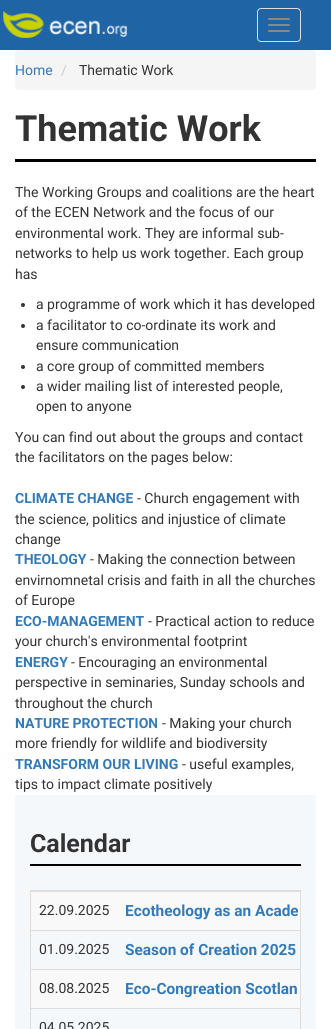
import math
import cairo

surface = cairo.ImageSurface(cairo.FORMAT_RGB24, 331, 1029)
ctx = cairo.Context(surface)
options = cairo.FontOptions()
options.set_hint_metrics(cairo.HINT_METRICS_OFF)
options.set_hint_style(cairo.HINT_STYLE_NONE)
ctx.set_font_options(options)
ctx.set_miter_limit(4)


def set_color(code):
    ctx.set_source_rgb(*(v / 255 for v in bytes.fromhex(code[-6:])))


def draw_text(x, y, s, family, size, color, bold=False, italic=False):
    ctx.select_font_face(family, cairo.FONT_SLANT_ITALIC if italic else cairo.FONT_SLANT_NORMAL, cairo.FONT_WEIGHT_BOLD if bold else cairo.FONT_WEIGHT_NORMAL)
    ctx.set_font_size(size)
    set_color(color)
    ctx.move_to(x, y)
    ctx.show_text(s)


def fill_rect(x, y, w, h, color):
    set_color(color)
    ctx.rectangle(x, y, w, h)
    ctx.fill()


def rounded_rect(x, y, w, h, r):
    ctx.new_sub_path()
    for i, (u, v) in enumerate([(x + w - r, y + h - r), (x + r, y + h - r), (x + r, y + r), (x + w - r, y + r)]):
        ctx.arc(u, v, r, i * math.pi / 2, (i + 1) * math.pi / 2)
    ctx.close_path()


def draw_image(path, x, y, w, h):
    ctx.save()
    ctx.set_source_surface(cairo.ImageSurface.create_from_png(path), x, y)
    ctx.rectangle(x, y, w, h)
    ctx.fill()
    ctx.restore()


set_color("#ffffff")
ctx.paint()
fill_rect(0, 0, 331, 50, "#1f64a5")
draw_image("assets/img1.png", 3, 11, 124, 27)
rounded_rect(257.5, 8.5, 43, 33, 3.5)
set_color("#dddddd")
ctx.set_line_width(1)
ctx.stroke()
set_color("#888888")
rounded_rect(268, 18, 22, 2, 1)
ctx.fill()
rounded_rect(268, 24, 22, 2, 1)
ctx.fill()
rounded_rect(268, 30, 22, 2, 1)
ctx.fill()
set_color("#f5f5f5")
rounded_rect(15, 50, 301, 40, 4)
ctx.fill()
draw_text(15, 75, "Home", "Roboto", 14, "#337ab7")
draw_text(61, 75, "/", "Roboto", 14, "#cccccc")
draw_text(79, 75, "Thematic Work", "Roboto", 14, "#333333")
fill_rect(15, 159, 301, 3, "#000000")
draw_text(15, 141, "Thematic Work", "Roboto", 36, "#333333", bold=True)
draw_text(15, 197, "The Working Groups and coalitions are the heart", "Roboto", 14, "#333333")
draw_text(15, 217, "of the ECEN Network and the focus of our", "Roboto", 14, "#333333")
draw_text(15, 238, "environmental work. They are informal sub-", "Roboto", 14, "#333333")
draw_text(15, 258, "networks to help us work together. Each group", "Roboto", 14, "#333333")
draw_text(15, 279, "has", "Roboto", 14, "#333333")
ctx.new_path()
ctx.arc(23, 305, 2, 0, 2 * math.pi)
ctx.fill()
draw_text(36, 309, "a programme of work which it has developed", "Roboto", 14, "#333333")
ctx.new_path()
ctx.arc(23, 326, 2, 0, 2 * math.pi)
ctx.fill()
draw_text(36, 330, "a facilitator to co-ordinate its work and", "Roboto", 14, "#333333")
draw_text(36, 350, "ensure communication", "Roboto", 14, "#333333")
ctx.new_path()
ctx.arc(23, 367, 2, 0, 2 * math.pi)
ctx.fill()
draw_text(36, 371, "a core group of committed members", "Roboto", 14, "#333333")
ctx.new_path()
ctx.arc(23, 387, 2, 0, 2 * math.pi)
ctx.fill()
draw_text(36, 391, "a wider mailing list of interested people,", "Roboto", 14, "#333333")
draw_text(36, 411, "open to anyone", "Roboto", 14, "#333333")
draw_text(15, 442, "You can find out about the groups and contact", "Roboto", 14, "#333333")
draw_text(15, 462, "the facilitators on the pages below:", "Roboto", 14, "#333333")
draw_text(15, 503, "CLIMATE CHANGE", "Roboto", 14, "#337ab7", bold=True)
draw_text(137, 503, "- Church engagement with", "Roboto", 14, "#333333")
draw_text(15, 524, "the science, politics and injustice of climate", "Roboto", 14, "#333333")
draw_text(15, 544, "change", "Roboto", 14, "#333333")
draw_text(15, 564, "THEOLOGY", "Roboto", 14, "#337ab7", bold=True)
draw_text(90, 564, "- Making the connection between", "Roboto", 14, "#333333")
draw_text(15, 585, "envirnomnetal crisis and faith in all the churches", "Roboto", 14, "#333333")
draw_text(15, 605, "of Europe", "Roboto", 14, "#333333")
draw_text(15, 626, "ECO-MANAGEMENT", "Roboto", 14, "#337ab7", bold=True)
draw_text(148, 626, "- Practical action to reduce", "Roboto", 14, "#333333")
draw_text(15, 646, "your church's environmental footprint", "Roboto", 14, "#333333")
draw_text(15, 667, "ENERGY", "Roboto", 14, "#337ab7", bold=True)
draw_text(71, 667, "- Encouraging an environmental", "Roboto", 14, "#333333")
draw_text(15, 687, "perspective in seminaries, Sunday schools and", "Roboto", 14, "#333333")
draw_text(15, 708, "throughout the church", "Roboto", 14, "#333333")
draw_text(15, 728, "NATURE PROTECTION", "Roboto", 14, "#337ab7", bold=True)
draw_text(162, 728, "- Making your church", "Roboto", 14, "#333333")
draw_text(15, 748, "more friendly for wildlife and biodiversity", "Roboto", 14, "#333333")
draw_text(15, 769, "TRANSFORM OUR LIVING", "Roboto", 14, "#337ab7", bold=True)
draw_text(182, 769, "- useful examples,", "Roboto", 14, "#333333")
draw_text(15, 789, "tips to impact climate positively", "Roboto", 14, "#333333")
fill_rect(15, 795, 301, 234, "#f4f8fb")
fill_rect(30, 864, 271, 2, "#000000")
draw_text(30, 852, "Calendar", "Roboto", 25, "#333333", bold=True)
ctx.rectangle(30.5, 890.5, 270, 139)
set_color("#dddddd")
ctx.stroke()
fill_rect(31, 892, 269, 38, "#f9f9f9")
draw_text(39, 915, "22.09.2025", "Roboto", 14, "#333333")
fill_rect(31, 891, 269, 1, "#dddddd")
draw_text(125, 916, "Ecotheology as an Acade", "Roboto", 15.4, "#337ab7", bold=True)
draw_text(39, 954, "01.09.2025", "Roboto", 14, "#333333")
fill_rect(31, 930, 269, 1, "#dddddd")
draw_text(125, 955, "Season of Creation 2025", "Roboto", 15.4, "#337ab7", bold=True)
fill_rect(31, 970, 269, 38, "#f9f9f9")
draw_text(39, 993, "08.08.2025", "Roboto", 14, "#333333")
fill_rect(31, 969, 269, 1, "#dddddd")
draw_text(125, 994, "Eco-Congreation Scotlan", "Roboto", 15.4, "#337ab7", bold=True)
fill_rect(31, 1008, 269, 1, "#dddddd")
draw_text(39, 1032, "04.05.2025", "Roboto", 14, "#333333")
surface.write_to_png("output.png")
